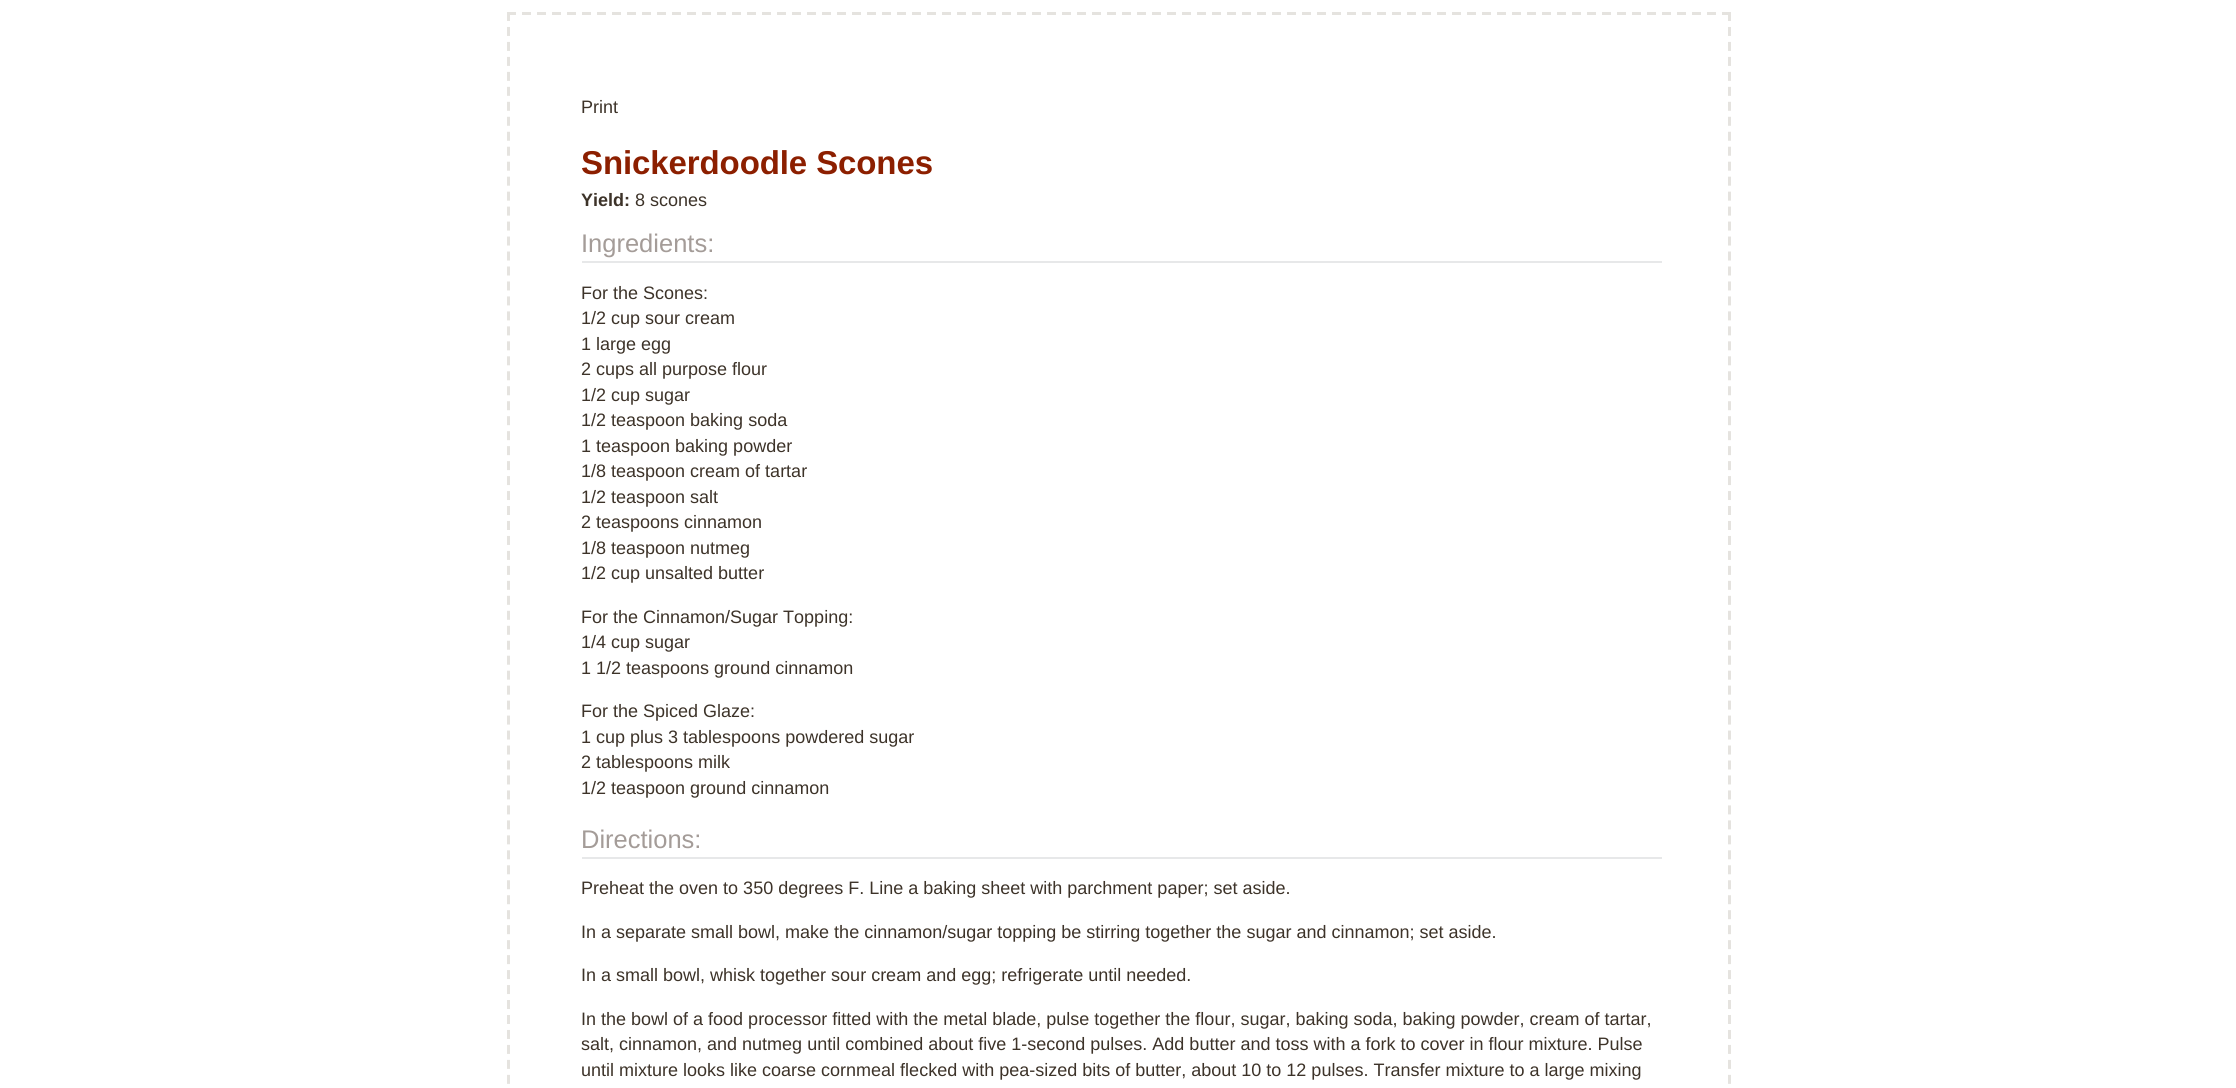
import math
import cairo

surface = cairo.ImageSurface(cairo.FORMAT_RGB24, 2236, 1088)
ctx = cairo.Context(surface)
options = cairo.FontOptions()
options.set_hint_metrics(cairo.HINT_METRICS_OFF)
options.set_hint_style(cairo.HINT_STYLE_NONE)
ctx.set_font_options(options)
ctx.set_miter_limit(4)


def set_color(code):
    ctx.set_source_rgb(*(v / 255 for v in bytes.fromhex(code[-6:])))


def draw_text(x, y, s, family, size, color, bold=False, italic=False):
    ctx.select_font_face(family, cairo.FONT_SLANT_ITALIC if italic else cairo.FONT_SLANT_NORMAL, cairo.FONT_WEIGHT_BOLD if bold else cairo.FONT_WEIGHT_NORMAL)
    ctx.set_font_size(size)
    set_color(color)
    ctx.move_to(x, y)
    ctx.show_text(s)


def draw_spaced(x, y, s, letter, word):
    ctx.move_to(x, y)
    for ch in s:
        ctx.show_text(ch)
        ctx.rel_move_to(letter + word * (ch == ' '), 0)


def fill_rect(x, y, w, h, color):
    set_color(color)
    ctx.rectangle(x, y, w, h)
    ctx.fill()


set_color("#ffffff")
ctx.paint()
ctx.new_path()
ctx.move_to(507, 13.5)
ctx.line_to(1731, 13.5)
set_color("#e5e3df")
ctx.set_line_width(3)
ctx.set_dash([9, 6])
ctx.stroke()
ctx.new_path()
ctx.move_to(1729.5, 12)
ctx.line_to(1729.5, 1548)
ctx.set_dash([9, 5.97])
ctx.stroke()
ctx.new_path()
ctx.move_to(508.5, 12)
ctx.line_to(508.5, 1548)
ctx.stroke()
draw_text(581, 113, "Print", "Liberation Sans", 18, "#3d3329")
ctx.select_font_face("Liberation Sans", cairo.FONT_SLANT_NORMAL, cairo.FONT_WEIGHT_BOLD)
ctx.set_font_size(33)
set_color("#8c1f00")
draw_spaced(581, 174, "Snickerdoodle Scones", -0.1, 0)
draw_text(581, 206, "Yield:", "Liberation Sans", 18, "#3d3329", bold=True)
draw_text(635, 206, "8 scones", "Liberation Sans", 18, "#3d3329")
fill_rect(582, 261, 1080, 2, "#e7e8e9")
draw_text(581, 252, "Ingredients:", "Liberation Sans", 25.5, "#a49c98")
draw_text(581, 299, "For the Scones:", "Liberation Sans", 18, "#3d3329")
draw_text(581, 324, "1/2 cup sour cream", "Liberation Sans", 18, "#3d3329")
draw_text(581, 350, "1 large egg", "Liberation Sans", 18, "#3d3329")
draw_text(581, 375, "2 cups all purpose flour", "Liberation Sans", 18, "#3d3329")
draw_text(581, 401, "1/2 cup sugar", "Liberation Sans", 18, "#3d3329")
draw_text(581, 426, "1/2 teaspoon baking soda", "Liberation Sans", 18, "#3d3329")
draw_text(581, 452, "1 teaspoon baking powder", "Liberation Sans", 18, "#3d3329")
draw_text(581, 477, "1/8 teaspoon cream of tartar", "Liberation Sans", 18, "#3d3329")
draw_text(581, 503, "1/2 teaspoon salt", "Liberation Sans", 18, "#3d3329")
draw_text(581, 528, "2 teaspoons cinnamon", "Liberation Sans", 18, "#3d3329")
draw_text(581, 554, "1/8 teaspoon nutmeg", "Liberation Sans", 18, "#3d3329")
draw_text(581, 579, "1/2 cup unsalted butter", "Liberation Sans", 18, "#3d3329")
draw_text(581, 623, "For the Cinnamon/Sugar Topping:", "Liberation Sans", 18, "#3d3329")
draw_text(581, 648, "1/4 cup sugar", "Liberation Sans", 18, "#3d3329")
draw_text(581, 674, "1 1/2 teaspoons ground cinnamon", "Liberation Sans", 18, "#3d3329")
draw_text(581, 717, "For the Spiced Glaze:", "Liberation Sans", 18, "#3d3329")
draw_text(581, 743, "1 cup plus 3 tablespoons powdered sugar", "Liberation Sans", 18, "#3d3329")
draw_text(581, 768, "2 tablespoons milk", "Liberation Sans", 18, "#3d3329")
draw_text(581, 794, "1/2 teaspoon ground cinnamon", "Liberation Sans", 18, "#3d3329")
fill_rect(582, 857, 1080, 2, "#e7e8e9")
draw_text(581, 848, "Directions:", "Liberation Sans", 25.5, "#a49c98")
draw_text(581, 894, "Preheat the oven to 350 degrees F. Line a baking sheet with parchment paper; set aside.", "Liberation Sans", 18, "#3d3329")
draw_text(581, 938, "In a separate small bowl, make the cinnamon/sugar topping be stirring together the sugar and cinnamon; set aside.", "Liberation Sans", 18, "#3d3329")
draw_text(581, 981, "In a small bowl, whisk together sour cream and egg; refrigerate until needed.", "Liberation Sans", 18, "#3d3329")
draw_text(581, 1025, "In the bowl of a food processor fitted with the metal blade, pulse together the flour, sugar, baking soda, baking powder, cream of tartar,", "Liberation Sans", 18, "#3d3329")
draw_text(581, 1050, "salt, cinnamon, and nutmeg until combined about five 1-second pulses. Add butter and toss with a fork to cover in flour mixture. Pulse", "Liberation Sans", 18, "#3d3329")
draw_text(581, 1076, "until mixture looks like coarse cornmeal flecked with pea-sized bits of butter, about 10 to 12 pulses. Transfer mixture to a large mixing", "Liberation Sans", 18, "#3d3329")
surface.write_to_png("output.png")
